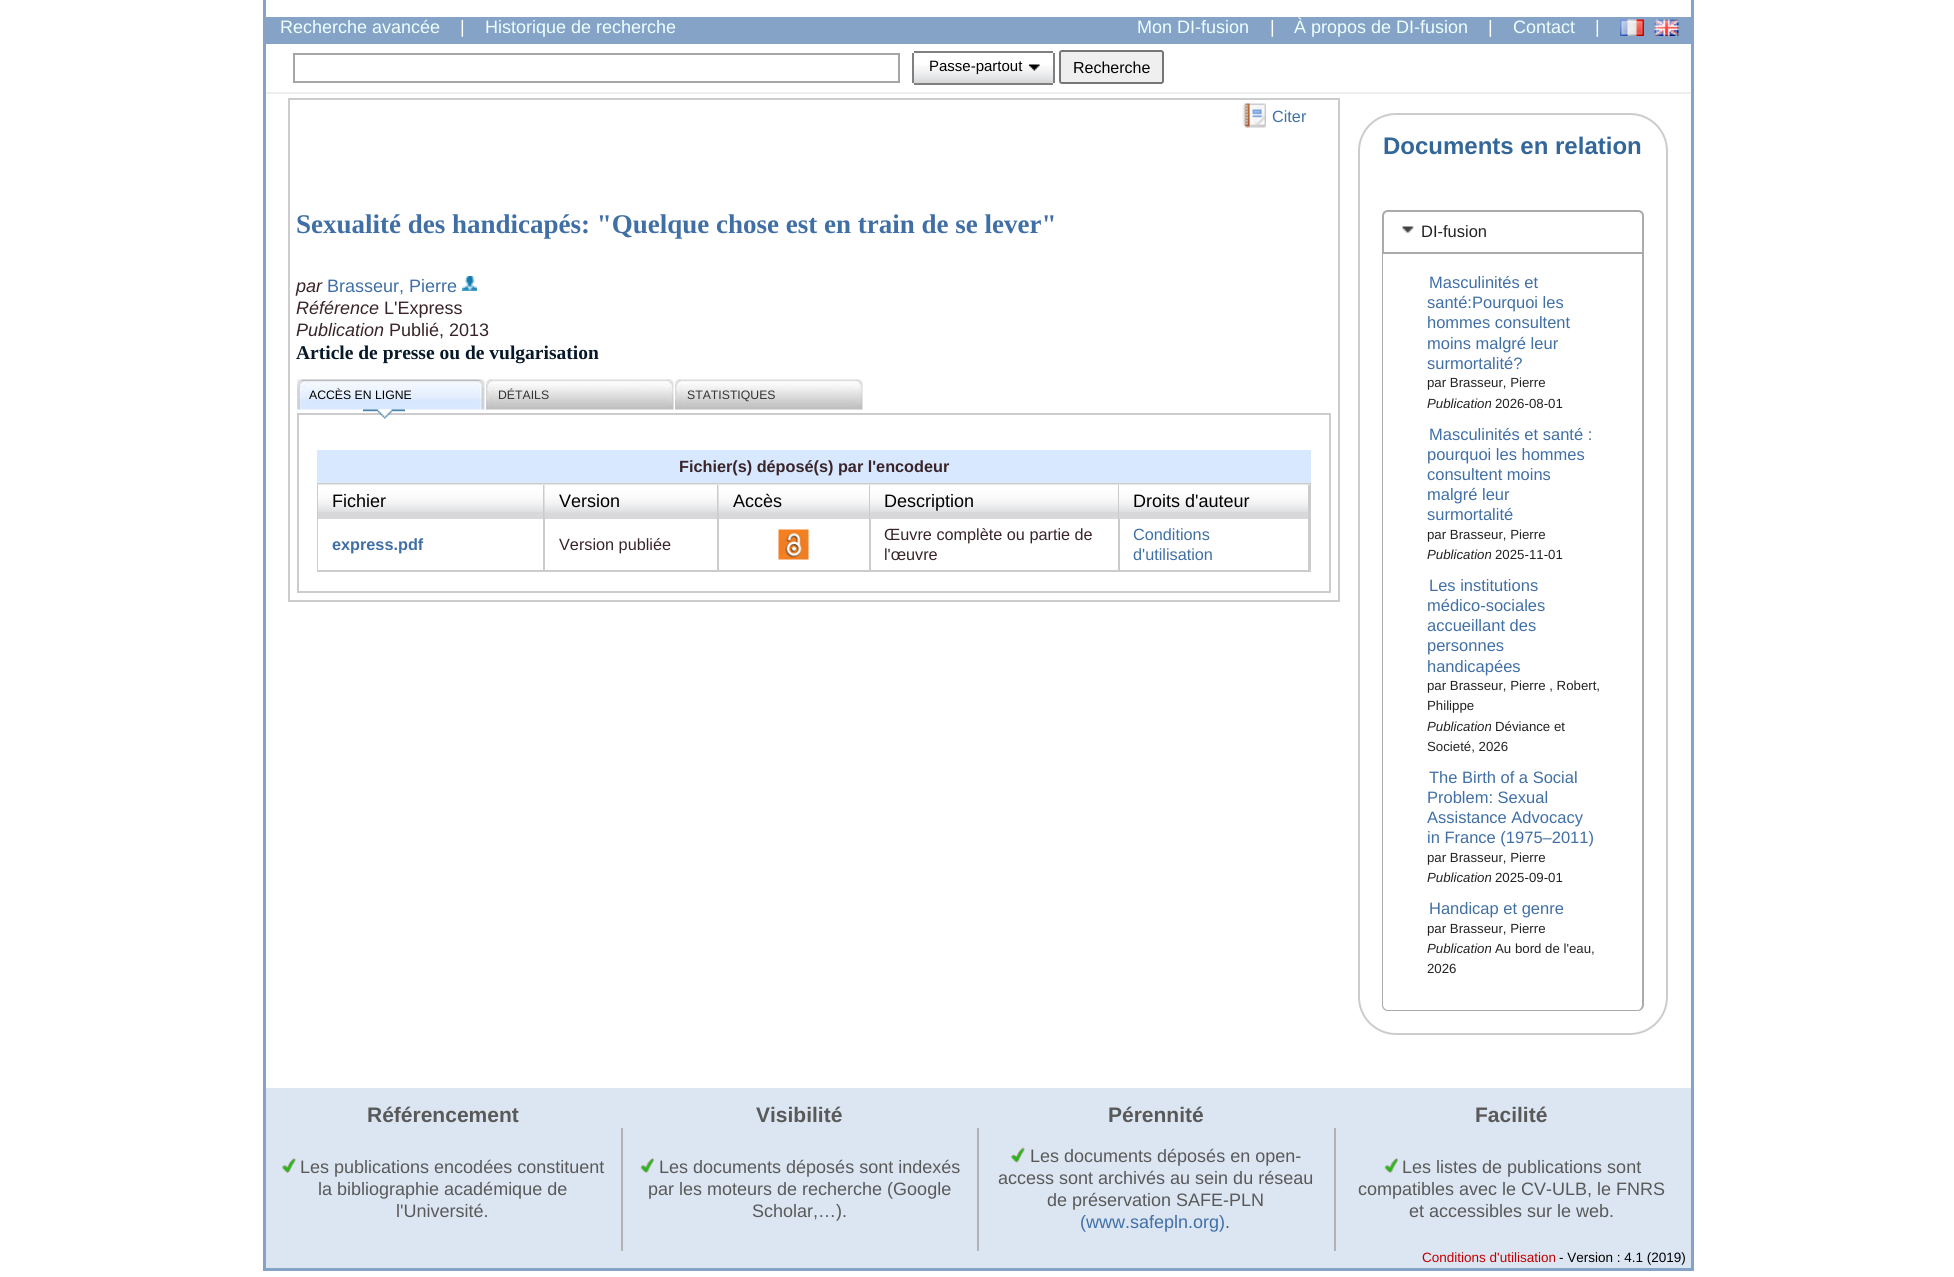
import math
import cairo

surface = cairo.ImageSurface(cairo.FORMAT_RGB24, 1954, 1277)
ctx = cairo.Context(surface)
options = cairo.FontOptions()
options.set_hint_metrics(cairo.HINT_METRICS_OFF)
options.set_hint_style(cairo.HINT_STYLE_NONE)
ctx.set_font_options(options)
ctx.set_miter_limit(4)


def set_color(code):
    ctx.set_source_rgb(*(v / 255 for v in bytes.fromhex(code[-6:])))


def draw_text(x, y, s, family, size, color, bold=False, italic=False):
    ctx.select_font_face(family, cairo.FONT_SLANT_ITALIC if italic else cairo.FONT_SLANT_NORMAL, cairo.FONT_WEIGHT_BOLD if bold else cairo.FONT_WEIGHT_NORMAL)
    ctx.set_font_size(size)
    set_color(color)
    ctx.move_to(x, y)
    ctx.show_text(s)


def fill_rect(x, y, w, h, color):
    set_color(color)
    ctx.rectangle(x, y, w, h)
    ctx.fill()


def rounded_rect(x, y, w, h, r):
    ctx.new_sub_path()
    for i, (u, v) in enumerate([(x + w - r, y + h - r), (x + r, y + h - r), (x + r, y + r), (x + w - r, y + r)]):
        ctx.arc(u, v, r, i * math.pi / 2, (i + 1) * math.pi / 2)
    ctx.close_path()


def draw_image(path, x, y, w, h):
    ctx.save()
    ctx.set_source_surface(cairo.ImageSurface.create_from_png(path), x, y)
    ctx.rectangle(x, y, w, h)
    ctx.fill()
    ctx.restore()


set_color("#ffffff")
ctx.paint()
fill_rect(263, 0, 1431, 1271, "#85a3c6")
fill_rect(266, 0, 1425, 1088, "#ffffff")
fill_rect(266, 17, 1425, 27, "#85a3c6")
draw_text(280, 33, "Recherche avancée", "Liberation Sans", 18, "#eeffff")
draw_text(460, 33, "|", "Liberation Sans", 18, "#ffffff")
draw_text(485, 33, "Historique de recherche", "Liberation Sans", 18, "#eeffff")
draw_text(1137, 33, "Mon DI-fusion", "Liberation Sans", 18, "#eeffff")
draw_text(1270, 33, "|", "Liberation Sans", 18, "#ffffff")
draw_text(1294, 33, "À propos de DI-fusion", "Liberation Sans", 18, "#eeffff")
draw_text(1488, 33, "|", "Liberation Sans", 18, "#ffffff")
draw_text(1513, 33, "Contact", "Liberation Sans", 18, "#eeffff")
draw_text(1595, 33, "|", "Liberation Sans", 18, "#ffffff")
draw_image("assets/img1.png", 1620, 19, 24, 17)
draw_image("assets/img2.png", 1654, 19, 25, 17)
ctx.rectangle(294, 54, 605, 28)
set_color("#a6a6a6")
ctx.stroke()
draw_image("assets/img3.png", 913, 65, 140, 19)
fill_rect(914, 51, 139, 2, "#808080")
fill_rect(914, 83, 139, 2, "#808080")
fill_rect(1053, 53, 2, 30, "#808080")
fill_rect(912, 53, 2, 30, "#808080")
draw_image("assets/img4.png", 1029, 64, 11, 7)
draw_text(929, 71, "Passe-partout", "Liberation Sans", 15, "#000000")
set_color("#efefef")
rounded_rect(1060, 51, 103, 32, 2)
ctx.fill_preserve()
set_color("#767676")
ctx.stroke()
draw_text(1073, 73, "Recherche", "Liberation Sans", 16, "#000000")
fill_rect(266, 92, 1425, 2, "#eeeeee")
ctx.rectangle(289, 99, 1050, 502)
set_color("#cccccc")
ctx.stroke()
draw_image("assets/img5.png", 1242, 103, 24, 25)
draw_text(1272, 122, "Citer", "Liberation Sans", 16.25, "#406fa6")
draw_text(296, 233, "Sexualité des handicapés: \"Quelque chose est en train de se lever\"", "Liberation Serif", 27, "#406fa6", bold=True)
draw_text(296, 292, "par", "Liberation Sans", 18, "#392529", italic=True)
draw_text(327, 292, "Brasseur, Pierre", "Liberation Sans", 18, "#406fa6")
draw_image("assets/img6.png", 462, 276, 15, 15)
draw_text(296, 314, "Référence", "Liberation Sans", 18, "#392529", italic=True)
draw_text(384, 314, "L'Express", "Liberation Sans", 18, "#392529")
draw_text(296, 336, "Publication", "Liberation Sans", 18, "#392529", italic=True)
draw_text(389, 336, "Publié, 2013", "Liberation Sans", 18, "#392529")
draw_text(296, 359, "Article de presse ou de vulgarisation", "Liberation Serif", 19.5, "#071829", bold=True)
draw_image("assets/img7.png", 297, 379, 188, 31)
draw_text(309, 399, "ACCÈS EN LIGNE", "Liberation Sans", 12.25, "#000000")
ctx.rectangle(298, 414, 1032, 178)
set_color("#cccccc")
ctx.stroke()
draw_image("assets/img8.png", 363, 409, 42, 10)
draw_image("assets/img9.png", 486, 379, 188, 31)
draw_text(498, 399, "DÉTAILS", "Liberation Sans", 12.25, "#333333")
draw_image("assets/img10.png", 675, 379, 188, 31)
draw_text(687, 399, "STATISTIQUES", "Liberation Sans", 12.25, "#333333")
fill_rect(317, 450, 994, 33, "#d8e8ff")
draw_text(679, 472, "Fichier(s) déposé(s) par l'encodeur", "Liberation Sans", 16.25, "#392529", bold=True)
ctx.rectangle(318, 484, 992, 87)
set_color("#cccccc")
ctx.stroke()
fill_rect(318, 512, 225, 7, "#d8d8da")
draw_image("assets/img11.png", 318, 484, 227, 28)
fill_rect(543, 485, 2, 85, "#cbcbcb")
draw_text(332, 507, "Fichier", "Liberation Sans", 18, "#000000")
draw_image("assets/img12.png", 544, 484, 175, 35)
fill_rect(717, 485, 2, 85, "#cbcbcb")
draw_text(559, 507, "Version", "Liberation Sans", 18, "#000000")
draw_image("assets/img13.png", 718, 484, 152, 35)
fill_rect(869, 485, 1, 34, "#cbcbcb")
draw_text(733, 507, "Accès", "Liberation Sans", 18, "#000000")
fill_rect(870, 512, 248, 7, "#d8d8da")
draw_image("assets/img14.png", 870, 484, 249, 28)
fill_rect(1118, 485, 1, 34, "#cbcbcb")
draw_text(884, 507, "Description", "Liberation Sans", 18, "#000000")
fill_rect(1119, 512, 189, 7, "#d8d8da")
draw_image("assets/img15.png", 1119, 484, 191, 28)
fill_rect(1308, 485, 2, 34, "#cbcbcb")
draw_text(1133, 507, "Droits d'auteur", "Liberation Sans", 18, "#000000")
fill_rect(318, 519, 1, 51, "#ffffff")
draw_text(332, 550, "express.pdf", "Liberation Sans", 16.25, "#406fa6", bold=True)
draw_text(559, 550, "Version publiée", "Liberation Sans", 16.25, "#392529")
fill_rect(869, 519, 2, 51, "#cbcbcb")
draw_image("assets/img16.png", 778, 529, 31, 31)
fill_rect(1118, 519, 2, 51, "#cbcbcb")
draw_text(884, 540, "Œuvre complète ou partie de", "Liberation Sans", 16.25, "#392529")
draw_text(884, 560, "l'œuvre", "Liberation Sans", 16.25, "#392529")
fill_rect(1308, 519, 1, 51, "#cbcbcb")
draw_text(1133, 540, "Conditions", "Liberation Sans", 16.25, "#406fa6")
draw_text(1133, 560, "d'utilisation", "Liberation Sans", 16.25, "#406fa6")
rounded_rect(1359, 114, 308, 920, 37)
set_color("#cccccc")
ctx.stroke()
draw_text(1383, 154, "Documents en relation", "Liberation Sans", 24, "#336699", bold=True)
ctx.new_path()
ctx.move_to(1388, 211)
ctx.line_to(1638, 211)
ctx.curve_to(1641, 211, 1643, 213, 1643, 216)
ctx.line_to(1643, 253)
ctx.line_to(1383, 253)
ctx.line_to(1383, 216)
ctx.curve_to(1383, 213, 1385, 211, 1388, 211)
ctx.close_path()
set_color("#aaaaaa")
ctx.stroke()
draw_image("assets/img17.png", 1402, 226, 12, 7)
draw_text(1421, 237, "DI-fusion", "Liberation Sans", 16.5, "#222222")
set_color("#aaaaaa")
ctx.set_fill_rule(cairo.FILL_RULE_EVEN_ODD)
ctx.new_path()
ctx.move_to(1382, 254)
ctx.line_to(1644, 254)
ctx.line_to(1644, 1005)
ctx.curve_to(1644, 1008, 1641, 1011, 1638, 1011)
ctx.line_to(1388, 1011)
ctx.curve_to(1384, 1011, 1382, 1008, 1382, 1005)
ctx.close_path()
ctx.move_to(1383, 254)
ctx.line_to(1642, 254)
ctx.line_to(1642, 1005)
ctx.curve_to(1642, 1007, 1640, 1010, 1638, 1010)
ctx.line_to(1388, 1010)
ctx.curve_to(1385, 1010, 1383, 1007, 1383, 1005)
ctx.close_path()
ctx.fill()
draw_text(1429, 288, "Masculinités et", "Liberation Sans", 16.5, "#406fa6")
draw_text(1427, 308, "santé:Pourquoi les", "Liberation Sans", 16.5, "#406fa6")
draw_text(1427, 328, "hommes consultent", "Liberation Sans", 16.5, "#406fa6")
draw_text(1427, 349, "moins malgré leur", "Liberation Sans", 16.5, "#406fa6")
draw_text(1427, 369, "surmortalité?", "Liberation Sans", 16.5, "#406fa6")
draw_text(1427, 387, "par Brasseur, Pierre", "Liberation Sans", 13.25, "#222222")
draw_text(1427, 408, "Publication", "Liberation Sans", 13.25, "#222222", italic=True)
draw_text(1495, 408, "2026-08-01", "Liberation Sans", 13.25, "#222222")
draw_text(1429, 440, "Masculinités et santé :", "Liberation Sans", 16.5, "#406fa6")
draw_text(1427, 460, "pourquoi les hommes", "Liberation Sans", 16.5, "#406fa6")
draw_text(1427, 480, "consultent moins", "Liberation Sans", 16.5, "#406fa6")
draw_text(1427, 500, "malgré leur", "Liberation Sans", 16.5, "#406fa6")
draw_text(1427, 520, "surmortalité", "Liberation Sans", 16.5, "#406fa6")
draw_text(1427, 539, "par Brasseur, Pierre", "Liberation Sans", 13.25, "#222222")
draw_text(1427, 559, "Publication", "Liberation Sans", 13.25, "#222222", italic=True)
draw_text(1495, 559, "2025-11-01", "Liberation Sans", 13.25, "#222222")
draw_text(1429, 591, "Les institutions", "Liberation Sans", 16.5, "#406fa6")
draw_text(1427, 611, "médico-sociales", "Liberation Sans", 16.5, "#406fa6")
draw_text(1427, 631, "accueillant des", "Liberation Sans", 16.5, "#406fa6")
draw_text(1427, 651, "personnes", "Liberation Sans", 16.5, "#406fa6")
draw_text(1427, 672, "handicapées", "Liberation Sans", 16.5, "#406fa6")
draw_text(1427, 690, "par Brasseur, Pierre , Robert,", "Liberation Sans", 13.25, "#222222")
draw_text(1427, 710, "Philippe", "Liberation Sans", 13.25, "#222222")
draw_text(1427, 731, "Publication", "Liberation Sans", 13.25, "#222222", italic=True)
draw_text(1495, 731, "Déviance et", "Liberation Sans", 13.25, "#222222")
draw_text(1427, 751, "Societé, 2026", "Liberation Sans", 13.25, "#222222")
draw_text(1429, 783, "The Birth of a Social", "Liberation Sans", 16.5, "#406fa6")
draw_text(1427, 803, "Problem: Sexual", "Liberation Sans", 16.5, "#406fa6")
draw_text(1427, 823, "Assistance Advocacy", "Liberation Sans", 16.5, "#406fa6")
draw_text(1427, 843, "in France (1975–2011)", "Liberation Sans", 16.5, "#406fa6")
draw_text(1427, 862, "par Brasseur, Pierre", "Liberation Sans", 13.25, "#222222")
draw_text(1427, 882, "Publication", "Liberation Sans", 13.25, "#222222", italic=True)
draw_text(1495, 882, "2025-09-01", "Liberation Sans", 13.25, "#222222")
draw_text(1429, 914, "Handicap et genre", "Liberation Sans", 16.5, "#406fa6")
draw_text(1427, 933, "par Brasseur, Pierre", "Liberation Sans", 13.25, "#222222")
draw_text(1427, 953, "Publication", "Liberation Sans", 13.25, "#222222", italic=True)
draw_text(1495, 953, "Au bord de l'eau,", "Liberation Sans", 13.25, "#222222")
draw_text(1427, 973, "2026", "Liberation Sans", 13.25, "#222222")
fill_rect(266, 1088, 1425, 180, "#dce6f2")
draw_text(367, 1122, "Référencement", "Liberation Sans", 21, "#595959", bold=True)
draw_text(756, 1122, "Visibilité", "Liberation Sans", 21, "#595959", bold=True)
draw_text(1108, 1122, "Pérennité", "Liberation Sans", 21, "#595959", bold=True)
draw_text(1475, 1122, "Facilité", "Liberation Sans", 21, "#595959", bold=True)
draw_image("assets/img18.png", 281, 1158, 15, 15)
draw_text(300, 1173, "Les publications encodées constituent", "Liberation Sans", 18, "#595959")
draw_text(318, 1195, "la bibliographie académique de", "Liberation Sans", 18, "#595959")
draw_text(396, 1217, "l'Université.", "Liberation Sans", 18, "#595959")
fill_rect(621, 1128, 2, 123, "#b2b2b2")
draw_image("assets/img19.png", 640, 1158, 14, 15)
draw_text(659, 1173, "Les documents déposés sont indexés", "Liberation Sans", 18, "#595959")
draw_text(648, 1195, "par les moteurs de recherche (Google", "Liberation Sans", 18, "#595959")
draw_text(752, 1217, "Scholar,…).", "Liberation Sans", 18, "#595959")
fill_rect(977, 1128, 2, 123, "#b2b2b2")
draw_image("assets/img20.png", 1010, 1147, 15, 16)
draw_text(1030, 1162, "Les documents déposés en open-", "Liberation Sans", 18, "#595959")
draw_text(998, 1184, "access sont archivés au sein du réseau", "Liberation Sans", 18, "#595959")
draw_text(1047, 1206, "de préservation SAFE-PLN", "Liberation Sans", 18, "#595959")
draw_text(1080, 1228, "(www.safepln.org)", "Liberation Sans", 18, "#406fa6")
draw_text(1225, 1228, ".", "Liberation Sans", 18, "#595959")
fill_rect(1334, 1128, 2, 123, "#b2b2b2")
draw_image("assets/img21.png", 1384, 1158, 14, 15)
draw_text(1402, 1173, "Les listes de publications sont", "Liberation Sans", 18, "#595959")
draw_text(1358, 1195, "compatibles avec le CV-ULB, le FNRS", "Liberation Sans", 18, "#595959")
draw_text(1409, 1217, "et accessibles sur le web.", "Liberation Sans", 18, "#595959")
draw_text(1422, 1262, "Conditions d'utilisation", "Liberation Sans", 13.5, "#c00000")
draw_text(1559, 1262, "- Version : 4.1 (2019)", "Liberation Sans", 13.5, "#000000")
surface.write_to_png("output.png")
